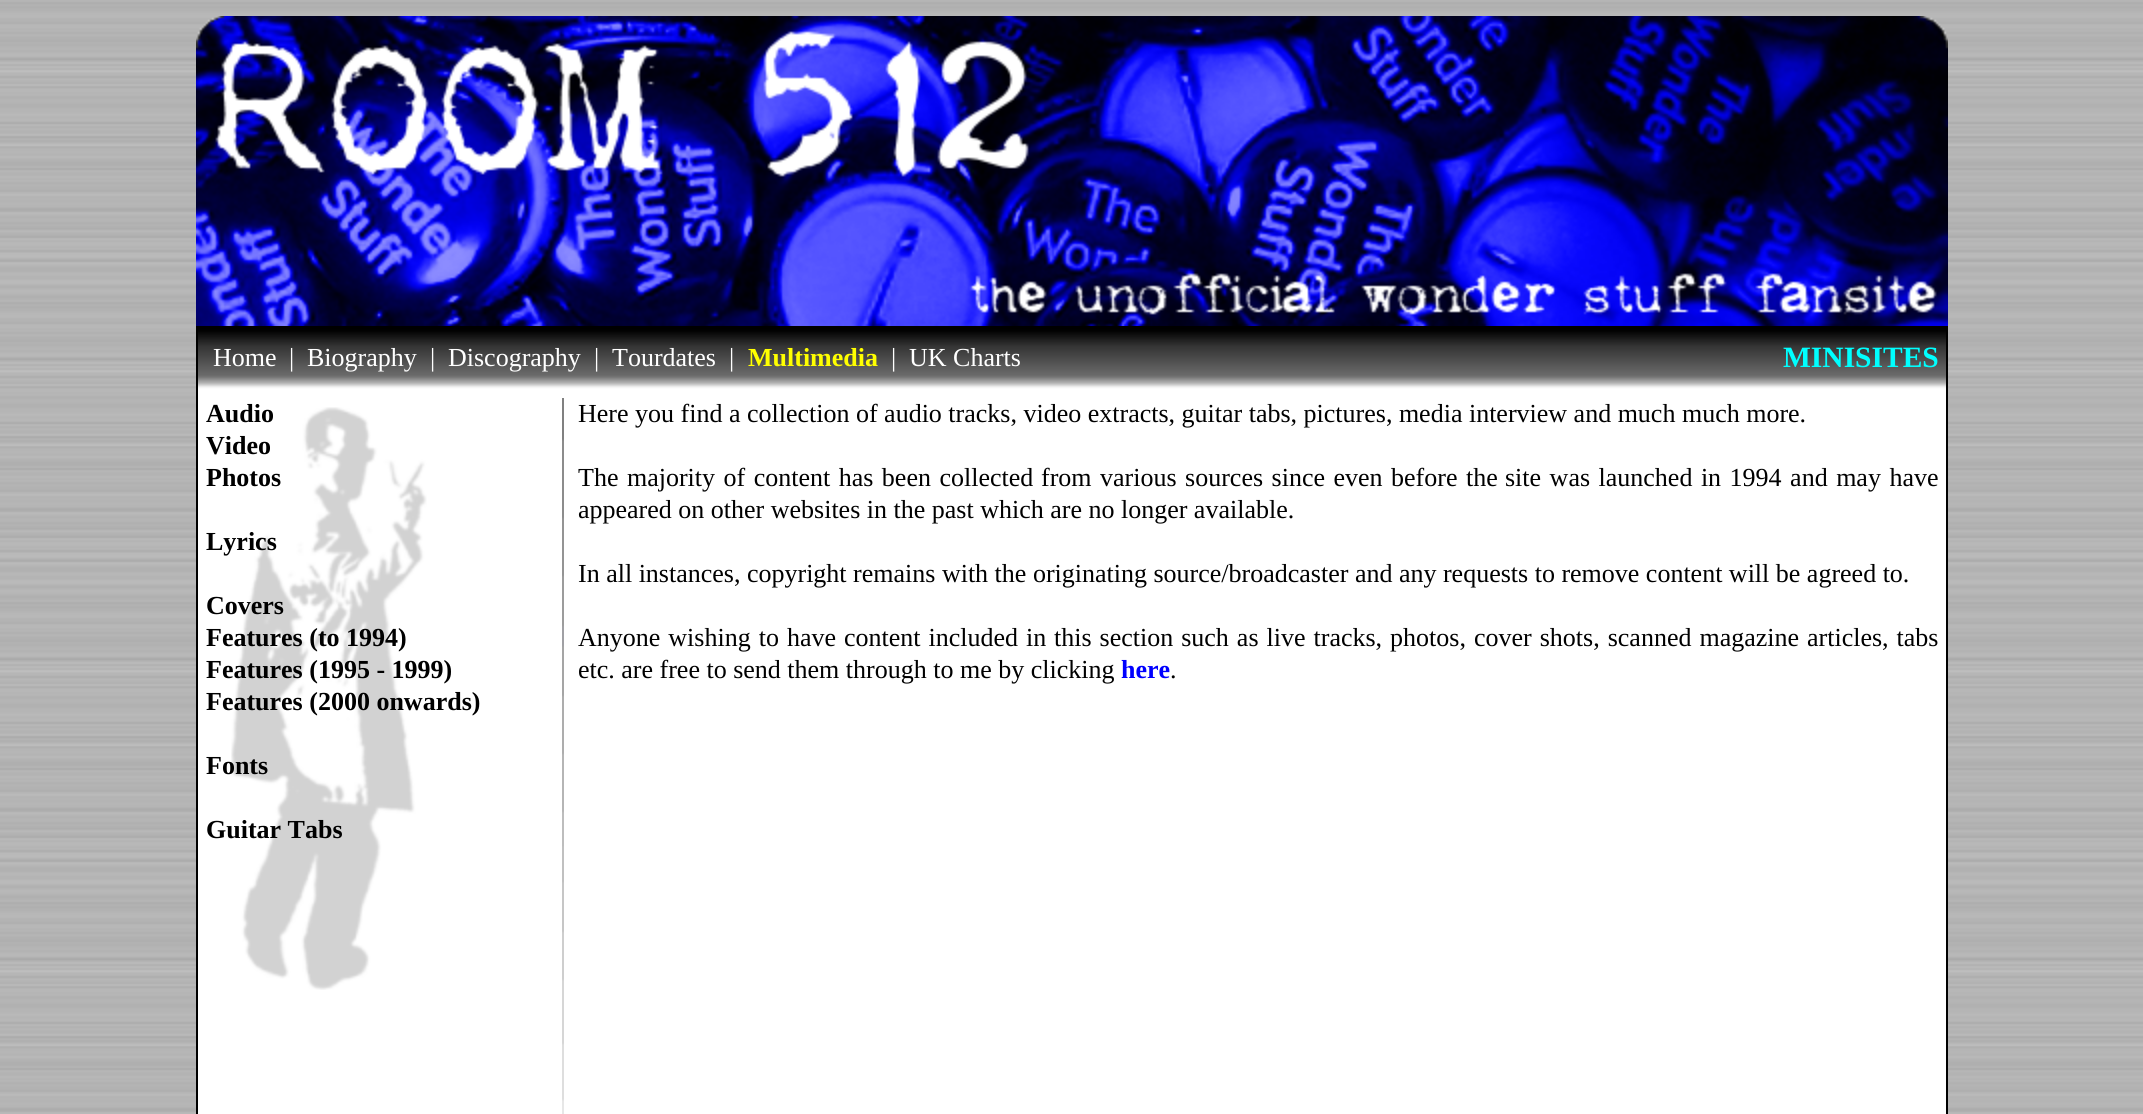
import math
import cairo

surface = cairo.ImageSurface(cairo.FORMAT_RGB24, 2143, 1114)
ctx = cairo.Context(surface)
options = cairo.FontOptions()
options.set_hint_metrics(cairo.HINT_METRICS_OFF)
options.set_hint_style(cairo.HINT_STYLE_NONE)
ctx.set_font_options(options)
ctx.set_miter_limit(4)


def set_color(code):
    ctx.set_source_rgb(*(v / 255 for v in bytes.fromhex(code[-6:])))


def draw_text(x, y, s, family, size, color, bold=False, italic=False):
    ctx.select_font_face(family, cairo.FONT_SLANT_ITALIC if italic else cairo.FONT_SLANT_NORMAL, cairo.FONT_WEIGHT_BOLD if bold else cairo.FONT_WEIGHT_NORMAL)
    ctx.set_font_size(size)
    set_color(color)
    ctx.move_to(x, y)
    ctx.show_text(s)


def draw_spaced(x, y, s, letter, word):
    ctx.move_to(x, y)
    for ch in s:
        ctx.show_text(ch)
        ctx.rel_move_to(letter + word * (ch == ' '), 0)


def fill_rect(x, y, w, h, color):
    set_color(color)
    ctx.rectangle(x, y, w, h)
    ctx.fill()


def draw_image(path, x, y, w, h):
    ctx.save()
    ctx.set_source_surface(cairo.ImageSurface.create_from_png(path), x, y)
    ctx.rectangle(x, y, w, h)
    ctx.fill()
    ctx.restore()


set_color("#ffffff")
ctx.paint()
draw_image("assets/img1.png", 0, 0, 2143, 1114)
draw_image("assets/img2.png", 196, 16, 1752, 310)
draw_image("assets/img3.png", 198, 326, 1748, 64)
fill_rect(1946, 326, 2, 788, "#000000")
fill_rect(196, 326, 2, 788, "#000000")
draw_text(213, 366, "Home", "Liberation Serif", 26, "#ffffff")
draw_text(289, 366, "|", "Liberation Serif", 26, "#ffffff")
draw_text(307, 366, "Biography", "Liberation Serif", 26, "#ffffff")
draw_text(430, 366, "|", "Liberation Serif", 26, "#ffffff")
draw_text(448, 366, "Discography", "Liberation Serif", 26, "#ffffff")
draw_text(594, 366, "|", "Liberation Serif", 26, "#ffffff")
draw_text(612, 366, "Tourdates", "Liberation Serif", 26, "#ffffff")
draw_text(729, 366, "|", "Liberation Serif", 26, "#ffffff")
draw_text(748, 366, "Multimedia", "Liberation Serif", 26, "#ffff00", bold=True)
draw_text(891, 366, "|", "Liberation Serif", 26, "#ffffff")
draw_text(909, 366, "UK Charts", "Liberation Serif", 26, "#ffffff")
draw_text(1783, 367, "MINISITES", "Liberation Serif", 29.5, "#00ffff", bold=True)
fill_rect(198, 390, 1748, 724, "#ffffff")
draw_image("assets/img4.png", 231, 407, 196, 583)
draw_text(206, 422, "Audio", "Liberation Serif", 26, "#000000", bold=True)
draw_text(206, 454, "Video", "Liberation Serif", 26, "#000000", bold=True)
draw_text(206, 486, "Photos", "Liberation Serif", 26, "#000000", bold=True)
draw_text(206, 550, "Lyrics", "Liberation Serif", 26, "#000000", bold=True)
draw_text(206, 614, "Covers", "Liberation Serif", 26, "#000000", bold=True)
draw_text(206, 646, "Features (to 1994)", "Liberation Serif", 26, "#000000", bold=True)
draw_text(206, 678, "Features (1995 - 1999)", "Liberation Serif", 26, "#000000", bold=True)
draw_text(206, 710, "Features (2000 onwards)", "Liberation Serif", 26, "#000000", bold=True)
draw_text(206, 774, "Fonts", "Liberation Serif", 26, "#000000", bold=True)
draw_text(206, 838, "Guitar Tabs", "Liberation Serif", 26, "#000000", bold=True)
draw_image("assets/img5.png", 562, 398, 2, 716)
draw_text(578, 422, "Here you find a collection of audio tracks, video extracts, guitar tabs, pictures, media interview and much much more.", "Liberation Serif", 26, "#000000")
draw_spaced(578, 486, "The majority of content has been collected", 0, 2)
draw_spaced(1041, 486, "from various sources since even before the", 0, 2)
draw_spaced(1505, 486, "site was launched in 1994 and may have", 0, 2)
draw_text(578, 518, "appeared on other websites in the past which are no longer available.", "Liberation Serif", 26, "#000000")
draw_text(578, 582, "In all instances, copyright remains with the originating source/broadcaster and any requests to remove content will be agreed to.", "Liberation Serif", 26, "#000000")
draw_spaced(578, 646, "Anyone wishing to have content included in", 0, 1.5)
draw_spaced(1054, 646, "this section such as live tracks, photos,", 0, 1.5)
draw_spaced(1474, 646, "cover shots, scanned magazine articles, tabs", 0, 1.5)
draw_text(578, 678, "etc. are free to send them through to me by clicking", "Liberation Serif", 26, "#000000")
draw_text(1121, 678, "here", "Liberation Serif", 26, "#0000ff", bold=True)
draw_text(1170, 678, ".", "Liberation Serif", 26, "#000000")
surface.write_to_png("output.png")
